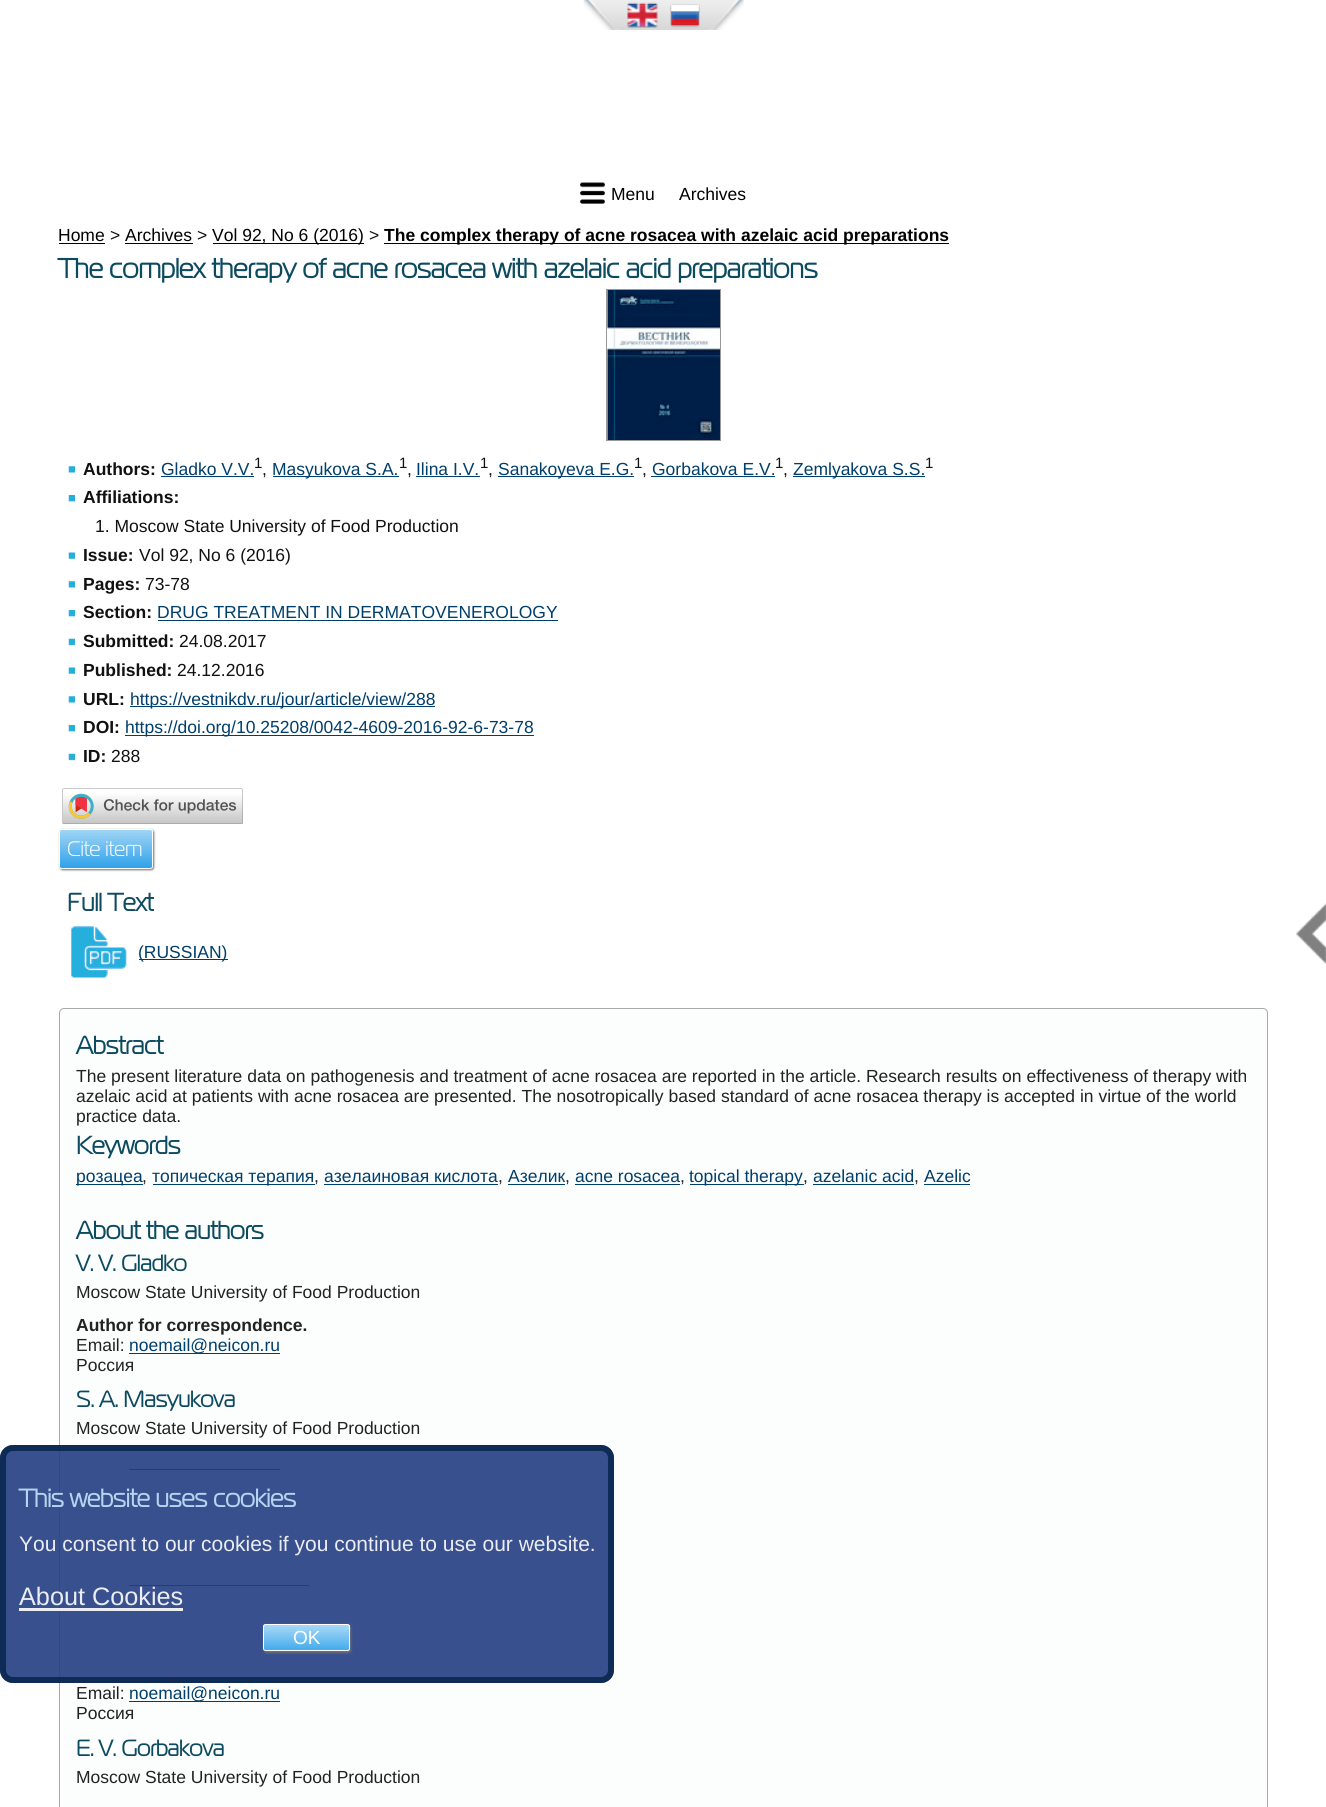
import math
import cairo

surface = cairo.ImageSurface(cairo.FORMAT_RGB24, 1326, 1807)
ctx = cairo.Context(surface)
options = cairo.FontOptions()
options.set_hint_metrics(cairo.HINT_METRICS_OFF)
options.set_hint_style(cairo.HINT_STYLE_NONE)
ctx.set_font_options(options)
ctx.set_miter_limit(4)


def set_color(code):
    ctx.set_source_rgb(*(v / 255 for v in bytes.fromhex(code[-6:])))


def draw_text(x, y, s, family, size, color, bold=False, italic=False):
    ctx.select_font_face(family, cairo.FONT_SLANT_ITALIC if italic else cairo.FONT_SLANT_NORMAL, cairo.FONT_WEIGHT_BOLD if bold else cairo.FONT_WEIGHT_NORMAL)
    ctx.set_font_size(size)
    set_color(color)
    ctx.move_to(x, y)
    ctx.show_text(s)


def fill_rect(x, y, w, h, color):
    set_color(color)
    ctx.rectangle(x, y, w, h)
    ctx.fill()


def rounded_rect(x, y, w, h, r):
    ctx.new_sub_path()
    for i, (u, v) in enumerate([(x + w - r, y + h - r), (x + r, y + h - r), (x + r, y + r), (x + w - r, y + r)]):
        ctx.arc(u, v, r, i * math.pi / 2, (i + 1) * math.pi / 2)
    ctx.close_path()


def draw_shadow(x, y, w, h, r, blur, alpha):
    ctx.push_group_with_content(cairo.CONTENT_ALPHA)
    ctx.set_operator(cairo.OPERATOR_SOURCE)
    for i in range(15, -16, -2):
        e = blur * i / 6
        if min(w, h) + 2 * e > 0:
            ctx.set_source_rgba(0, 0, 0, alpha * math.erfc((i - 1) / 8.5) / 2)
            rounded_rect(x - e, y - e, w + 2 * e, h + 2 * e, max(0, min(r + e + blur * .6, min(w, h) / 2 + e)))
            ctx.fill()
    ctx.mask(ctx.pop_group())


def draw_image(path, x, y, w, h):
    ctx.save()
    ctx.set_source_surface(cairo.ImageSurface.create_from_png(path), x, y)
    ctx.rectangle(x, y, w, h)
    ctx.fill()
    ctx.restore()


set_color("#ffffff")
ctx.paint()
draw_image("assets/img1.png", 583, 0, 161, 30)
draw_image("assets/img2.png", 627, 2, 31, 26)
draw_image("assets/img3.png", 670, 4, 30, 24)
draw_image("assets/img4.png", 580, 182, 25, 22)
draw_text(611, 200, "Menu", "Liberation Sans", 17.5, "#000000")
draw_text(679, 200, "Archives", "Liberation Sans", 17.5, "#000000")
draw_text(58, 241, "Home", "Liberation Sans", 17.5, "#000000")
fill_rect(59, 243, 46, 1, "#010101")
draw_text(110, 241, ">", "Liberation Sans", 17.5, "#111111")
draw_text(125, 241, "Archives", "Liberation Sans", 17.5, "#000000")
fill_rect(125, 243, 68, 1, "#010101")
draw_text(197, 241, ">", "Liberation Sans", 17.5, "#111111")
fill_rect(213, 243, 151, 1, "#010101")
draw_text(212, 241, "Vol 92, No 6 (2016)", "Liberation Sans", 17.5, "#000000")
draw_text(369, 241, ">", "Liberation Sans", 17.5, "#111111")
fill_rect(384, 243, 565, 1, "#010101")
draw_text(384, 241, "The complex therapy of acne rosacea with azelaic acid preparations", "Liberation Sans", 17.5, "#000000", bold=True)
draw_text(58, 278, "The complex therapy of acne rosacea with azelaic acid preparations", "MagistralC", 27.5, "#0b4a5f", bold=True)
ctx.rectangle(606.5, 289.5, 114, 151)
set_color("#989898")
ctx.set_line_width(1)
ctx.stroke()
draw_image("assets/img5.png", 607, 290, 113, 150)
draw_image("assets/img6.png", 68, 466, 7, 8)
draw_text(83, 475, "Authors:", "Liberation Sans", 17.5, "#111111", bold=True)
draw_text(161, 475, "Gladko V.V.", "Liberation Sans", 17.5, "#003f6c")
fill_rect(161, 476, 93, 1, "#003f6c")
draw_text(254, 468, "1", "Liberation Sans", 15, "#111111")
draw_text(262, 475, ",", "Liberation Sans", 17.5, "#111111")
fill_rect(273, 476, 126, 1, "#003f6c")
draw_text(272, 475, "Masyukova S.A.", "Liberation Sans", 17.5, "#003f6c")
draw_text(399, 468, "1", "Liberation Sans", 15, "#111111")
draw_text(407, 475, ",", "Liberation Sans", 17.5, "#111111")
draw_text(416, 475, "Ilina I.V.", "Liberation Sans", 17.5, "#003f6c")
fill_rect(416, 476, 64, 1, "#003f6c")
draw_text(480, 468, "1", "Liberation Sans", 15, "#111111")
draw_text(488, 475, ",", "Liberation Sans", 17.5, "#111111")
fill_rect(498, 476, 136, 1, "#003f6c")
draw_text(498, 475, "Sanakoyeva E.G.", "Liberation Sans", 17.5, "#003f6c")
draw_text(634, 468, "1", "Liberation Sans", 15, "#111111")
draw_text(642, 475, ",", "Liberation Sans", 17.5, "#111111")
draw_text(652, 475, "Gorbakova E.V.", "Liberation Sans", 17.5, "#003f6c")
fill_rect(651, 476, 124, 1, "#003f6c")
draw_text(775, 468, "1", "Liberation Sans", 15, "#111111")
draw_text(783, 475, ",", "Liberation Sans", 17.5, "#111111")
fill_rect(793, 476, 132, 1, "#003f6c")
draw_text(793, 475, "Zemlyakova S.S.", "Liberation Sans", 17.5, "#003f6c")
draw_text(925, 468, "1", "Liberation Sans", 15, "#111111")
draw_image("assets/img7.png", 68, 495, 7, 8)
draw_text(83, 503, "Affiliations:", "Liberation Sans", 17.5, "#111111", bold=True)
draw_text(95, 532, "1. Moscow State University of Food Production", "Liberation Sans", 17.5, "#111111")
draw_image("assets/img8.png", 68, 552, 7, 8)
draw_text(83, 561, "Issue:", "Liberation Sans", 17.5, "#111111", bold=True)
draw_text(139, 561, "Vol 92, No 6 (2016)", "Liberation Sans", 17.5, "#111111")
draw_image("assets/img6.png", 68, 581, 7, 8)
draw_text(83, 590, "Pages:", "Liberation Sans", 17.5, "#111111", bold=True)
draw_text(145, 590, "73-78", "Liberation Sans", 17.5, "#111111")
draw_image("assets/img7.png", 68, 610, 7, 8)
draw_text(83, 618, "Section:", "Liberation Sans", 17.5, "#111111", bold=True)
draw_text(157, 618, "DRUG TREATMENT IN DERMATOVENEROLOGY", "Liberation Sans", 17.5, "#003f6c")
fill_rect(158, 620, 400, 1, "#003f6c")
draw_image("assets/img9.png", 68, 638, 7, 8)
draw_text(83, 647, "Submitted:", "Liberation Sans", 17.5, "#111111", bold=True)
draw_text(179, 647, "24.08.2017", "Liberation Sans", 17.5, "#111111")
draw_image("assets/img8.png", 68, 667, 7, 8)
draw_text(83, 676, "Published:", "Liberation Sans", 17.5, "#111111", bold=True)
draw_text(177, 676, "24.12.2016", "Liberation Sans", 17.5, "#111111")
draw_image("assets/img6.png", 68, 696, 7, 8)
draw_text(83, 705, "URL:", "Liberation Sans", 17.5, "#111111", bold=True)
fill_rect(130, 706, 305, 1, "#003f6c")
draw_text(130, 705, "https://vestnikdv.ru/jour/article/view/288", "Liberation Sans", 17.5, "#003f6c")
draw_image("assets/img7.png", 68, 725, 7, 8)
draw_text(83, 733, "DOI:", "Liberation Sans", 17.5, "#111111", bold=True)
fill_rect(125, 735, 409, 1, "#003f6c")
draw_text(125, 733, "https://doi.org/10.25208/0042-4609-2016-92-6-73-78", "Liberation Sans", 17.5, "#003f6c")
draw_image("assets/img9.png", 68, 753, 7, 8)
draw_text(83, 762, "ID:", "Liberation Sans", 17.5, "#111111", bold=True)
draw_text(111, 762, "288", "Liberation Sans", 17.5, "#111111")
draw_image("assets/img10.png", 62, 788, 181, 36)
set_color("#737373")
draw_shadow(60, 830, 94, 40, 2.5, 1, 1)
ctx.save()
rounded_rect(59, 829, 94, 40, 2.5)
ctx.clip()
gradient = cairo.LinearGradient(106, 830, 106, 868)
gradient.add_color_stop_rgba(0, 0.627, 0.835, 0.961, 1)
gradient.add_color_stop_rgba(1, 0.184, 0.635, 0.918, 1)
ctx.set_source(gradient)
ctx.rectangle(59, 830, 94, 38)
ctx.fill()
ctx.restore()
rounded_rect(59.5, 829.5, 93, 39, 2)
set_color("#ffffff")
ctx.stroke()
draw_text(67, 856, "Cite item", "MagistralC", 21, "#ffffff")
draw_text(67, 911, "Full Text", "MagistralC", 25, "#0b4a5f", bold=True)
draw_image("assets/img11.png", 71, 926, 56, 52)
fill_rect(139, 959, 89, 1, "#003f6c")
draw_text(138, 958, "(RUSSIAN)", "Liberation Sans", 17.5, "#003f6c")
set_color("#fcfdfd")
rounded_rect(59.5, 1008.5, 1208, 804, 4.5)
ctx.fill_preserve()
set_color("#aaaaaa")
ctx.stroke()
draw_text(76, 1054, "Abstract", "MagistralC", 25, "#0b4a5f", bold=True)
draw_text(76, 1082, "The present literature data on pathogenesis and treatment of acne rosacea are reported in the article. Research results on effectiveness of therapy with", "Liberation Sans", 17.5, "#222222")
draw_text(76, 1102, "azelaic acid at patients with acne rosacea are presented. The nosotropically based standard of acne rosacea therapy is accepted in virtue of the world", "Liberation Sans", 17.5, "#222222")
draw_text(76, 1122, "practice data.", "Liberation Sans", 17.5, "#222222")
draw_text(76, 1154, "Keywords", "MagistralC", 25, "#0b4a5f", bold=True)
fill_rect(76, 1184, 67, 1, "#003f6c")
draw_text(76, 1182, "розацеа", "Liberation Sans", 17.5, "#003f6c")
draw_text(142, 1182, ",", "Liberation Sans", 17.5, "#222222")
fill_rect(153, 1184, 162, 1, "#003f6c")
draw_text(152, 1182, "топическая терапия", "Liberation Sans", 17.5, "#003f6c")
draw_text(314, 1182, ",", "Liberation Sans", 17.5, "#222222")
draw_text(324, 1182, "азелаиновая кислота", "Liberation Sans", 17.5, "#003f6c")
fill_rect(324, 1184, 174, 1, "#003f6c")
draw_text(498, 1182, ",", "Liberation Sans", 17.5, "#222222")
draw_text(508, 1182, "Азелик", "Liberation Sans", 17.5, "#003f6c")
fill_rect(508, 1184, 57, 1, "#003f6c")
draw_text(565, 1182, ",", "Liberation Sans", 17.5, "#222222")
draw_text(575, 1182, "acne rosacea", "Liberation Sans", 17.5, "#003f6c")
fill_rect(575, 1184, 105, 1, "#003f6c")
draw_text(680, 1182, ",", "Liberation Sans", 17.5, "#222222")
fill_rect(690, 1184, 114, 1, "#003f6c")
draw_text(689, 1182, "topical therapy", "Liberation Sans", 17.5, "#003f6c")
draw_text(803, 1182, ",", "Liberation Sans", 17.5, "#222222")
draw_text(813, 1182, "azelanic acid", "Liberation Sans", 17.5, "#003f6c")
fill_rect(813, 1184, 101, 1, "#003f6c")
draw_text(914, 1182, ",", "Liberation Sans", 17.5, "#222222")
draw_text(924, 1182, "Azelic", "Liberation Sans", 17.5, "#003f6c")
fill_rect(924, 1184, 46, 1, "#003f6c")
draw_text(76, 1239, "About the authors", "MagistralC", 25, "#0b4a5f", bold=True)
draw_text(76, 1271, "V. V. Gladko", "MagistralC", 22.5, "#0b4a5f", bold=True)
draw_text(76, 1298, "Moscow State University of Food Production", "Liberation Sans", 17.5, "#222222")
draw_text(76, 1331, "Author for correspondence.", "Liberation Sans", 17.5, "#222222", bold=True)
draw_text(76, 1351, "Email:", "Liberation Sans", 17.5, "#222222")
fill_rect(129, 1353, 151, 1, "#003f6c")
draw_text(129, 1351, "noemail@neicon.ru", "Liberation Sans", 17.5, "#003f6c")
draw_text(76, 1371, "Россия", "Liberation Sans", 17.5, "#222222")
draw_text(76, 1407, "S. A. Masyukova", "MagistralC", 22.5, "#0b4a5f", bold=True)
draw_text(76, 1434, "Moscow State University of Food Production", "Liberation Sans", 17.5, "#222222")
fill_rect(129, 1469, 151, 1, "#003f6c")
fill_rect(129, 1585, 180, 1, "#003f6c")
draw_text(76, 1699, "Email:", "Liberation Sans", 17.5, "#222222")
fill_rect(129, 1701, 151, 1, "#003f6c")
draw_text(129, 1699, "noemail@neicon.ru", "Liberation Sans", 17.5, "#003f6c")
draw_text(76, 1719, "Россия", "Liberation Sans", 17.5, "#222222")
draw_text(76, 1756, "E. V. Gorbakova", "MagistralC", 22.5, "#0b4a5f", bold=True)
draw_text(76, 1783, "Moscow State University of Food Production", "Liberation Sans", 17.5, "#222222")
draw_image("assets/img12.png", 1296, 903, 30, 61)
ctx.set_source_rgba(0.141, 0.243, 0.51, 0.9)
rounded_rect(0, 1445, 614, 238, 13)
ctx.fill()
rounded_rect(3, 1448, 608, 232, 10)
ctx.set_source_rgba(0.039, 0.153, 0.31, 0.9)
ctx.set_line_width(6)
ctx.stroke()
draw_text(19, 1507, "This website uses cookies", "MagistralC", 25.25, "#b5d5ee", bold=True)
draw_text(19, 1551, "You consent to our cookies if you continue to use our website.", "Liberation Sans", 21, "#ebedf3")
draw_text(19, 1605, "About Cookies", "Liberation Sans", 25.25, "#ebedf3")
ctx.set_source_rgba(1, 1, 1, 0.9)
ctx.rectangle(19, 1608, 164, 3)
ctx.fill()
set_color("#737373")
draw_shadow(264, 1625, 87, 28, 2.5, 1, 0.9)
ctx.save()
rounded_rect(263, 1624, 87, 27, 2.5)
ctx.clip()
gradient = cairo.LinearGradient(306, 1625, 306, 1650)
gradient.add_color_stop_rgba(0, 0.663, 0.851, 0.965, 1)
gradient.add_color_stop_rgba(1, 0.267, 0.671, 0.925, 1)
ctx.set_source(gradient)
ctx.rectangle(263, 1625, 87, 25)
ctx.fill()
ctx.restore()
rounded_rect(263.5, 1624.5, 86, 26, 2)
set_color("#ffffff")
ctx.set_line_width(1)
ctx.stroke()
draw_text(293, 1644, "OK", "Liberation Sans", 19, "#ffffff")
surface.write_to_png("output.png")
